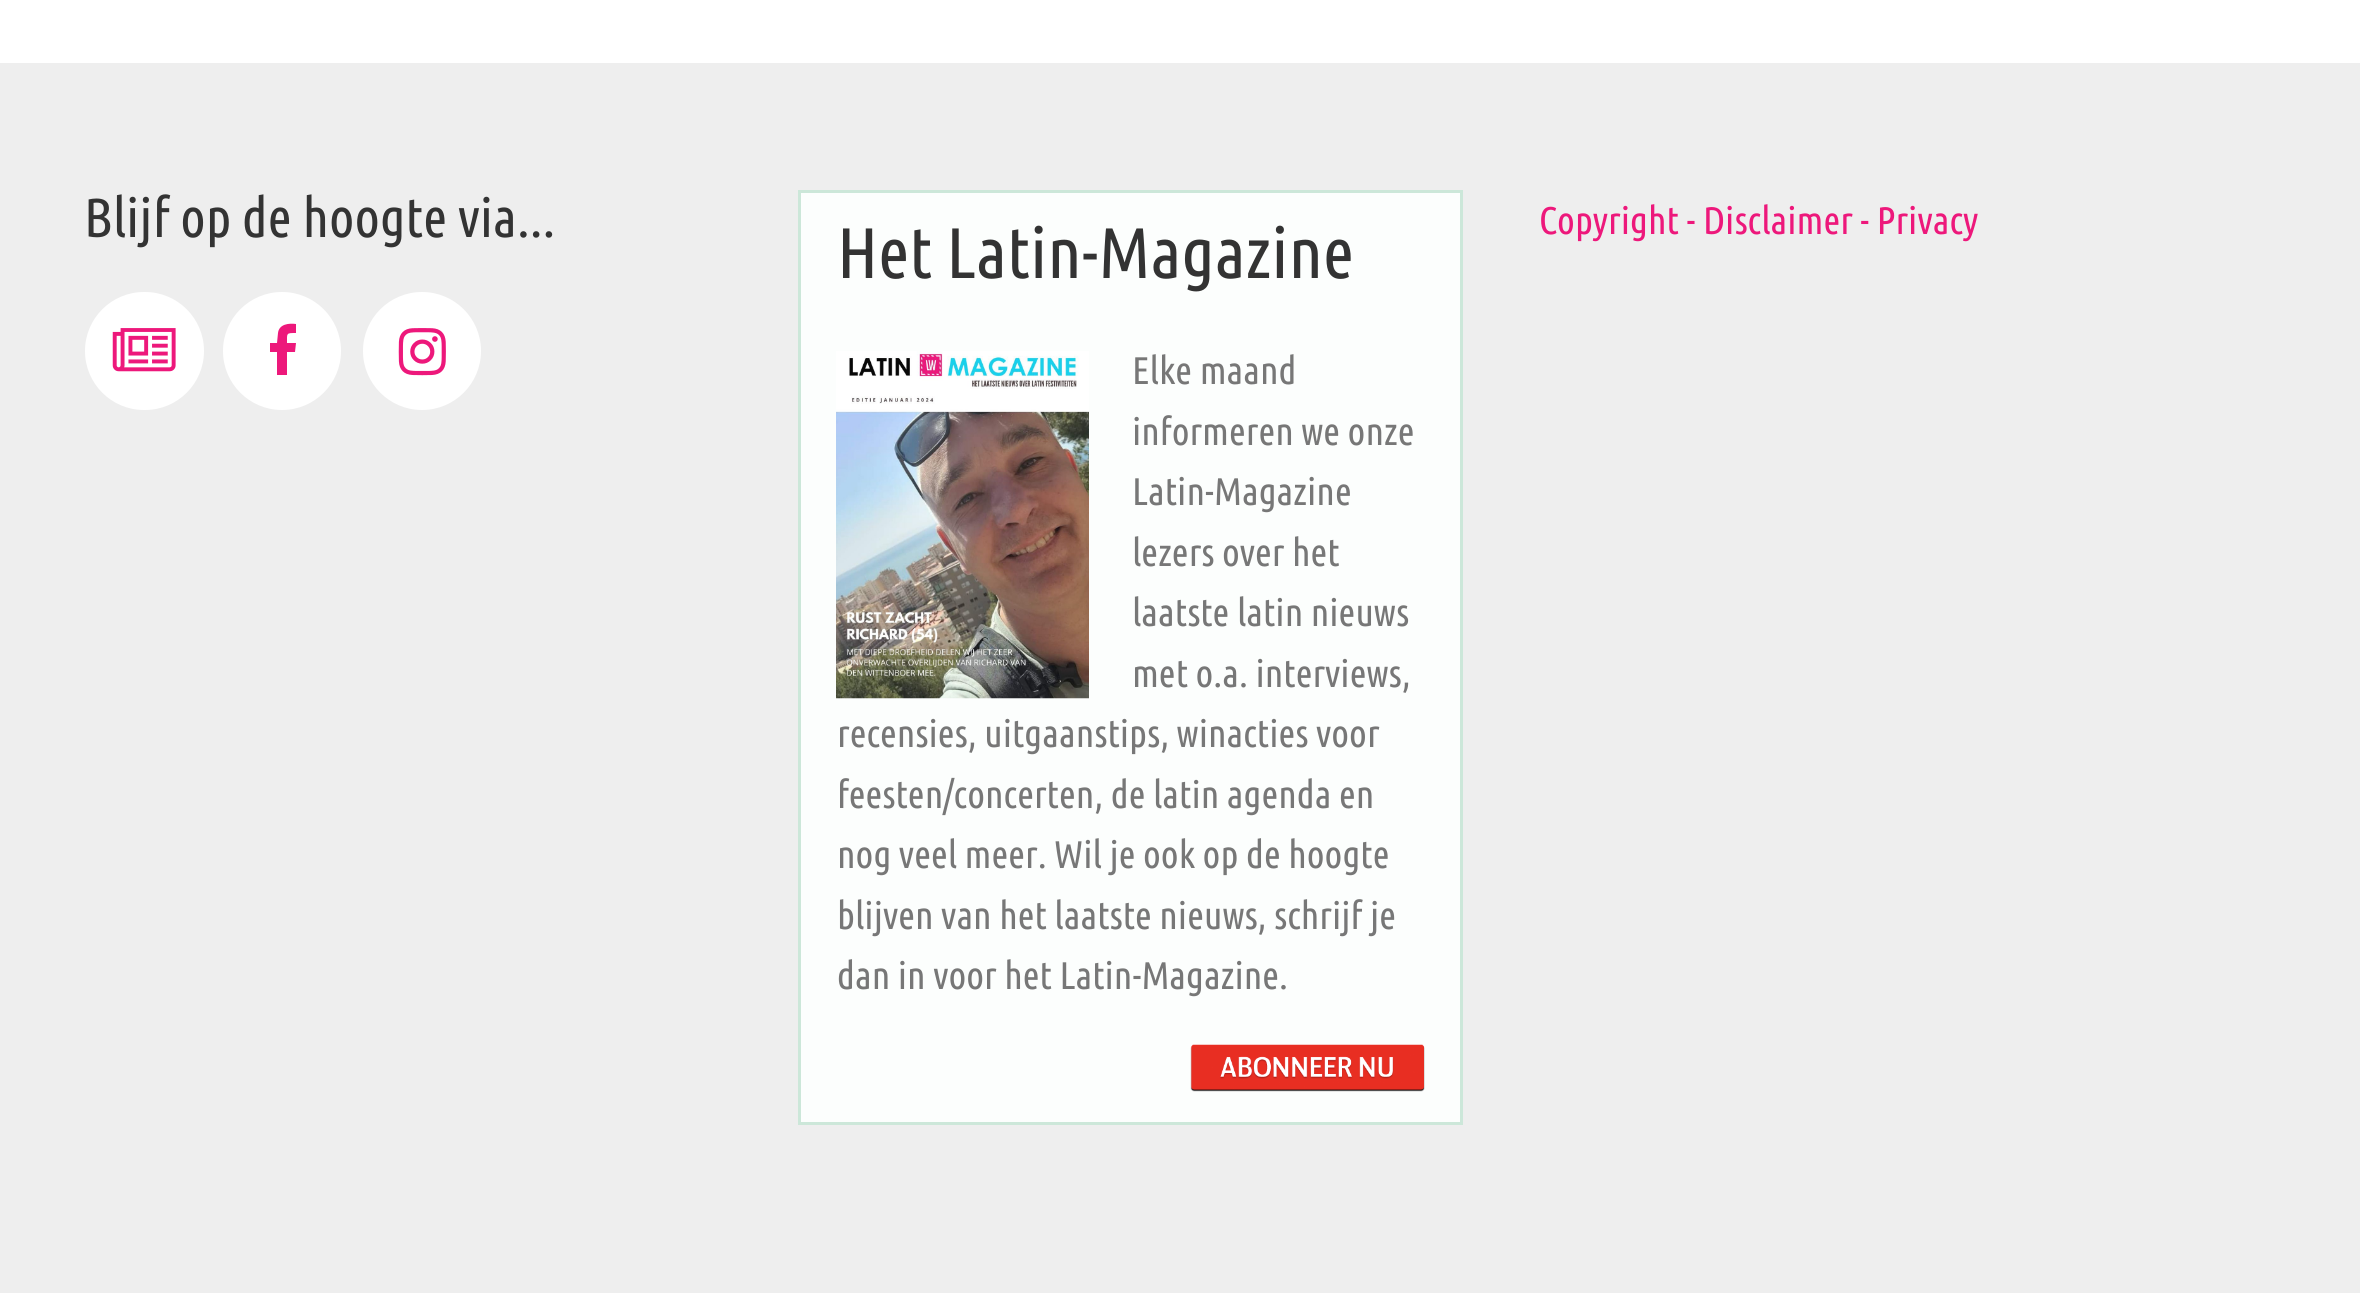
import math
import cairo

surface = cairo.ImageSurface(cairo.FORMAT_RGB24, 2360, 1293)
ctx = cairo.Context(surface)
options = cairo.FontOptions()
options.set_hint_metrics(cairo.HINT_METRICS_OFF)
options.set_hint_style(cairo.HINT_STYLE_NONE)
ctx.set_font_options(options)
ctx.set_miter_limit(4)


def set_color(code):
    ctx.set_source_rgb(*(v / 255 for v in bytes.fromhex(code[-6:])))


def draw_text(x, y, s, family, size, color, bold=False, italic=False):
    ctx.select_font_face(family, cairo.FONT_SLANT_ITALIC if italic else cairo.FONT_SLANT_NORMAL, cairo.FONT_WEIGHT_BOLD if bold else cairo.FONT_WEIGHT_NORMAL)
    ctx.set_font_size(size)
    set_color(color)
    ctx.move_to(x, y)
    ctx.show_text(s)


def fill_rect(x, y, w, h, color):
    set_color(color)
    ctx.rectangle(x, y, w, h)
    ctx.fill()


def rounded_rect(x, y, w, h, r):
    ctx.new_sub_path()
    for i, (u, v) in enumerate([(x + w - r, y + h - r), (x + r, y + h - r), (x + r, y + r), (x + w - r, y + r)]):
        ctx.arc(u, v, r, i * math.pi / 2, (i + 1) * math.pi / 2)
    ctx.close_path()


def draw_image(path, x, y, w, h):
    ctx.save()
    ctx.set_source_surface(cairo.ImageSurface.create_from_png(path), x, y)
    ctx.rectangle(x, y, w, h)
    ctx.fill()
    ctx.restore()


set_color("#ffffff")
ctx.paint()
fill_rect(0, 63, 2360, 1230, "#eeeeee")
draw_text(84, 237, "Blijf op de hoogte via...", "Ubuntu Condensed", 55, "#333333")
set_color("#ffffff")
rounded_rect(85, 292, 119, 118, 59)
ctx.fill()
draw_image("assets/img1.png", 112, 328, 64, 44)
ctx.arc(282, 351, 59, 0, 2 * math.pi)
ctx.fill()
set_color("#ed187b")
ctx.new_path()
ctx.move_to(296, 324)
ctx.line_to(296, 333)
ctx.curve_to(286, 333, 287, 333, 287, 343)
ctx.line_to(296, 343)
ctx.line_to(295, 352)
ctx.line_to(287, 352)
ctx.line_to(287, 375)
ctx.line_to(277, 375)
ctx.line_to(277, 352)
ctx.line_to(270, 352)
ctx.line_to(270, 343)
ctx.line_to(277, 343)
ctx.line_to(278, 333)
ctx.curve_to(279, 324, 289, 323, 296, 324)
ctx.close_path()
ctx.fill()
set_color("#ffffff")
ctx.arc(422, 351, 59, 0, 2 * math.pi)
ctx.fill()
draw_image("assets/img2.png", 398, 328, 48, 48)
set_color("#fcfefd")
ctx.rectangle(799.5, 191.5, 662, 932)
ctx.fill_preserve()
set_color("#cce7d9")
ctx.set_line_width(3)
ctx.stroke()
draw_text(837, 278, "Het Latin-Magazine", "Ubuntu Condensed", 71.5, "#333333")
draw_image("assets/img3.png", 836, 351, 253, 348)
draw_text(1132, 384, "Elke maand", "Ubuntu Condensed", 38.5, "#777777")
draw_text(1132, 445, "informeren we onze", "Ubuntu Condensed", 38.5, "#777777")
draw_text(1132, 505, "Latin-Magazine", "Ubuntu Condensed", 38.5, "#777777")
draw_text(1132, 566, "lezers over het", "Ubuntu Condensed", 38.5, "#777777")
draw_text(1132, 626, "laatste latin nieuws", "Ubuntu Condensed", 38.5, "#777777")
draw_text(1132, 687, "met o.a. interviews,", "Ubuntu Condensed", 38.5, "#777777")
draw_text(837, 747, "recensies, uitgaanstips, winacties voor", "Ubuntu Condensed", 38.5, "#777777")
draw_text(837, 808, "feesten/concerten, de latin agenda en", "Ubuntu Condensed", 38.5, "#777777")
draw_text(837, 868, "nog veel meer. Wil je ook op de hoogte", "Ubuntu Condensed", 38.5, "#777777")
draw_text(837, 929, "blijven van het laatste nieuws, schrijf je", "Ubuntu Condensed", 38.5, "#777777")
draw_text(837, 989, "dan in voor het Latin-Magazine.", "Ubuntu Condensed", 38.5, "#777777")
draw_image("assets/img4.png", 1190, 1044, 235, 48)
draw_text(1539, 234, "Copyright - Disclaimer - Privacy", "Ubuntu Condensed", 38.5, "#ed187b")
surface.write_to_png("output.png")
